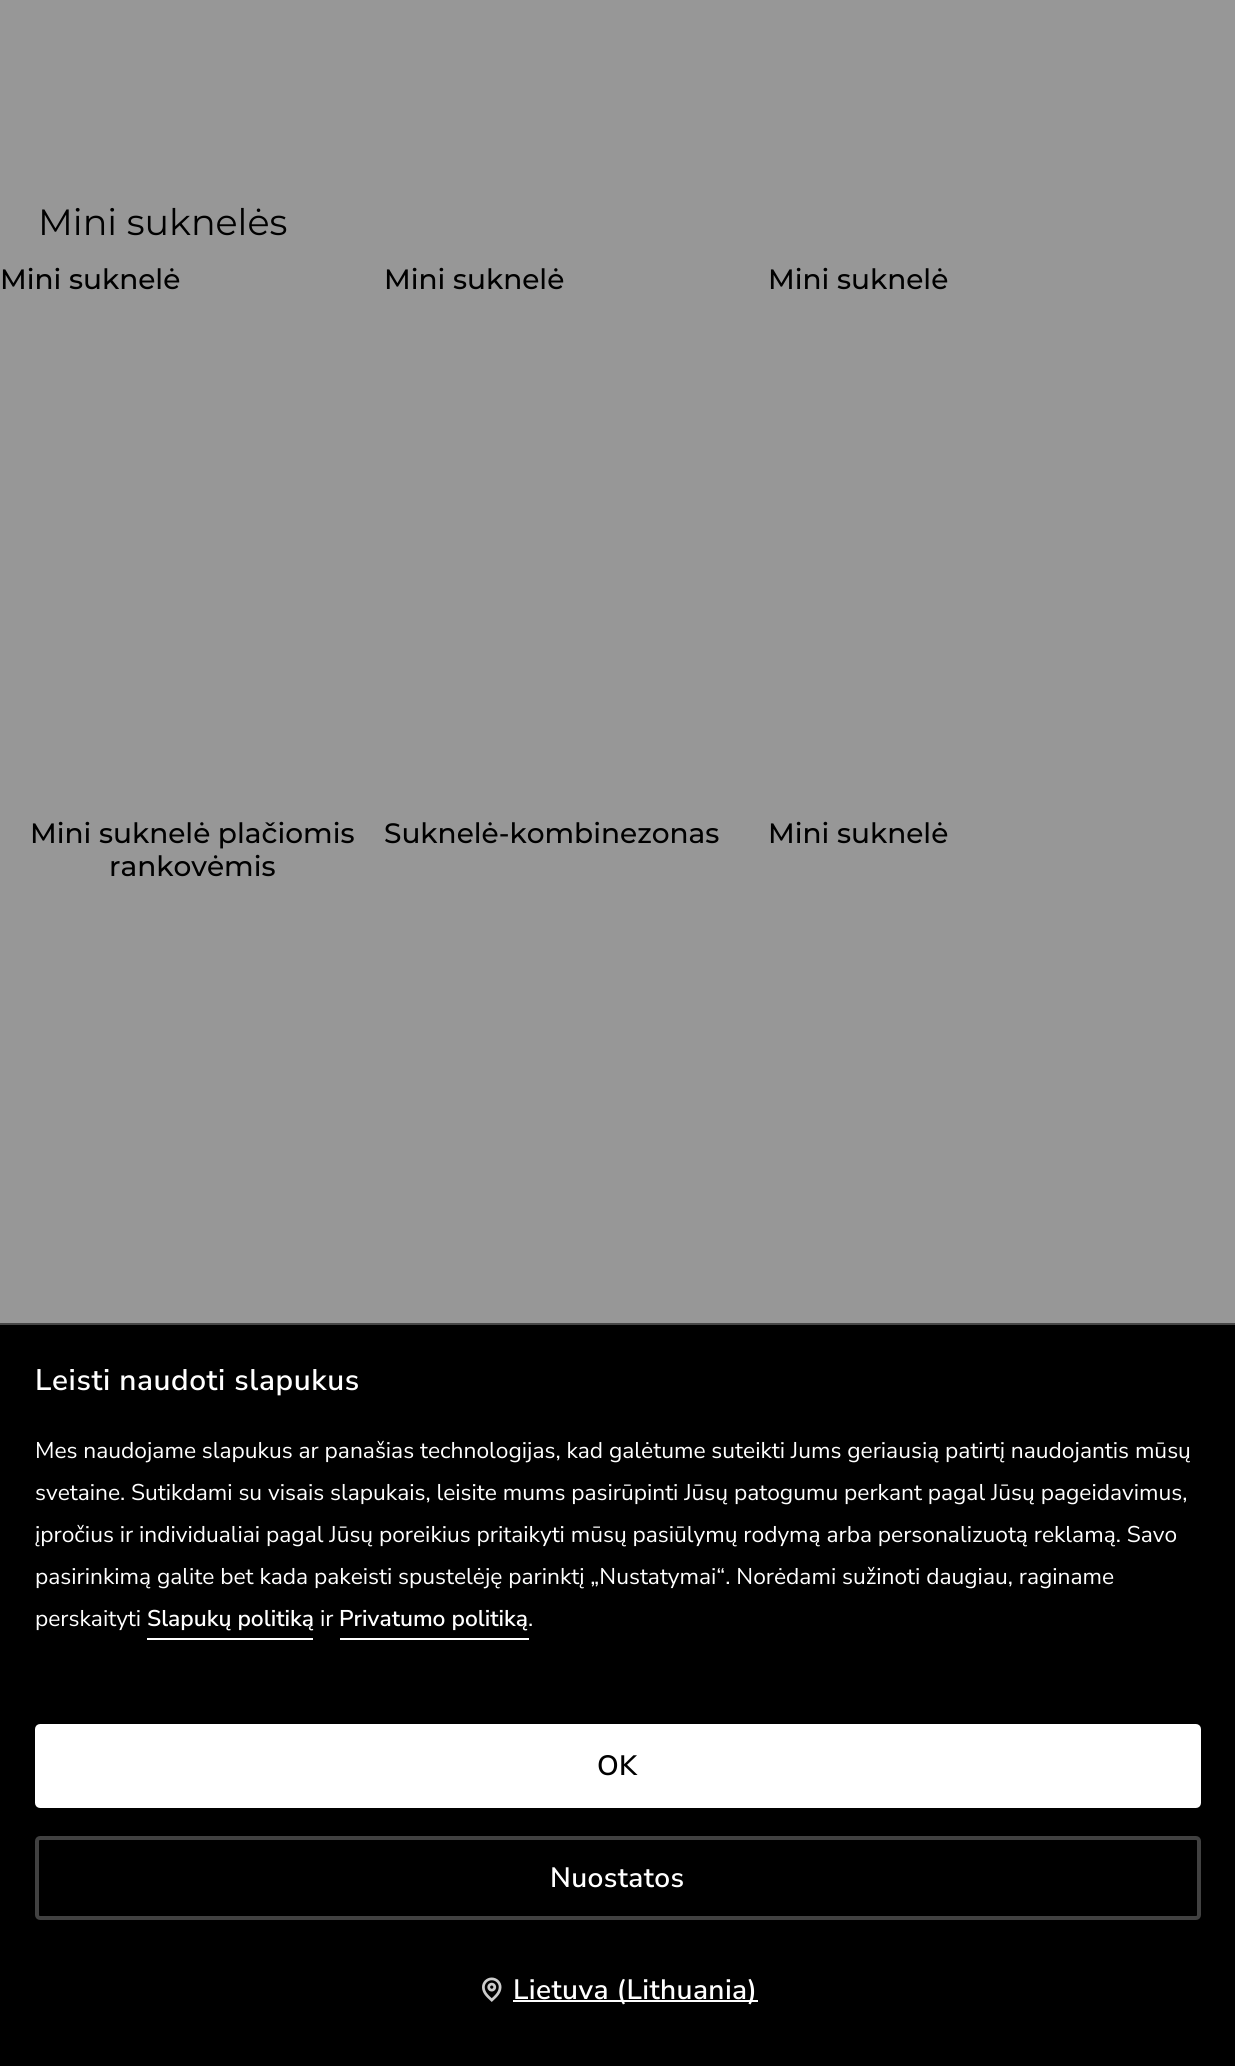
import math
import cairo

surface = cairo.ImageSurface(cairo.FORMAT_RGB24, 1235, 2066)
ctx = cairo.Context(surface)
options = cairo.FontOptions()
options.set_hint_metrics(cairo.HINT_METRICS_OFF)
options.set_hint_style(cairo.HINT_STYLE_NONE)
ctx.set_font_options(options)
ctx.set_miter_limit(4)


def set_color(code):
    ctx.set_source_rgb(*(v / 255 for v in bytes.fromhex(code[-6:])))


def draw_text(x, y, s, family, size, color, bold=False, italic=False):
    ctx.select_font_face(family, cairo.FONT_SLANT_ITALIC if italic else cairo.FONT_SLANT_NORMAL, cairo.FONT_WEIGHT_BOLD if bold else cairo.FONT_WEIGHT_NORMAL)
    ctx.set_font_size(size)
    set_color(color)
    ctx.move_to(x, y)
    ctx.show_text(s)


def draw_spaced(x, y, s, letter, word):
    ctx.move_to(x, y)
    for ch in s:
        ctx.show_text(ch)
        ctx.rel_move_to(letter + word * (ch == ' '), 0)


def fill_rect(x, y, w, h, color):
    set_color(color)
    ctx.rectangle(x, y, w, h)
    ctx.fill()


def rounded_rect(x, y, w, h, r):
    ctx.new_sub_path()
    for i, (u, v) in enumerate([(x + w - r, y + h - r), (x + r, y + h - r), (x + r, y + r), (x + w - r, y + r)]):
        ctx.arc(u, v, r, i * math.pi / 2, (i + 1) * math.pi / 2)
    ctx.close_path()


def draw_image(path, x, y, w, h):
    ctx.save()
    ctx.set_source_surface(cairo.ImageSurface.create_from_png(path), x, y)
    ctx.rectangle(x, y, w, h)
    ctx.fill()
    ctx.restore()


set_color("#979797")
ctx.paint()
draw_text(38, 235, "Mini suknelės", "Montserrat", 36.5, "#000000")
draw_text(0, 289, "Mini suknelė", "Montserrat Medium", 28, "#000000")
draw_text(384, 289, "Mini suknelė", "Montserrat Medium", 28, "#000000")
draw_text(768, 289, "Mini suknelė", "Montserrat Medium", 28, "#000000")
draw_text(30, 843, "Mini suknelė plačiomis", "Montserrat Medium", 28, "#000000")
draw_text(109, 876, "rankovėmis", "Montserrat Medium", 28, "#000000")
draw_text(384, 843, "Suknelė-kombinezonas", "Montserrat Medium", 28, "#000000")
draw_text(768, 843, "Mini suknelė", "Montserrat Medium", 28, "#000000")
fill_rect(0, 1325, 1235, 741, "#000000")
fill_rect(0, 1323, 1235, 2, "#474747")
ctx.select_font_face("Nunito Sans SemiBold")
ctx.set_font_size(29.75)
set_color("#ffffff")
draw_spaced(35, 1390, "Leisti naudoti slapukus", 0.6, 0)
draw_text(35, 1458, "Mes naudojame slapukus ar panašias technologijas, kad galėtume suteikti Jums geriausią patirtį naudojantis mūsų", "Nunito Sans", 22.75, "#ffffff")
draw_text(35, 1500, "svetaine. Sutikdami su visais slapukais, leisite mums pasirūpinti Jūsų patogumu perkant pagal Jūsų pageidavimus,", "Nunito Sans", 22.75, "#ffffff")
draw_text(35, 1542, "įpročius ir individualiai pagal Jūsų poreikius pritaikyti mūsų pasiūlymų rodymą arba personalizuotą reklamą. Savo", "Nunito Sans", 22.75, "#ffffff")
draw_text(35, 1584, "pasirinkimą galite bet kada pakeisti spustelėję parinktį „Nustatymai“. Norėdami sužinoti daugiau, raginame", "Nunito Sans", 22.75, "#ffffff")
draw_text(35, 1626, "perskaityti", "Nunito Sans", 22.75, "#ffffff")
draw_text(147, 1626, "Slapukų politiką", "Nunito Sans SemiBold", 22.75, "#ffffff")
fill_rect(147, 1638, 166, 2, "#ffffff")
draw_text(320, 1626, "ir", "Nunito Sans", 22.75, "#ffffff")
draw_text(339, 1626, "Privatumo politiką", "Nunito Sans SemiBold", 22.75, "#ffffff")
fill_rect(340, 1638, 189, 2, "#ffffff")
draw_text(528, 1626, ".", "Nunito Sans", 22.75, "#ffffff")
rounded_rect(37, 1726, 1162, 80, 3)
ctx.fill_preserve()
ctx.set_line_width(4)
ctx.stroke()
ctx.select_font_face("Nunito Sans SemiBold")
ctx.set_font_size(28)
set_color("#000000")
draw_spaced(597, 1775, "OK", 0.4, 0)
rounded_rect(37, 1838, 1162, 80, 3)
set_color("#414141")
ctx.stroke()
set_color("#ffffff")
draw_spaced(550, 1887, "Nuostatos", 0.4, 0)
draw_image("assets/img1.png", 482, 1977, 20, 25)
fill_rect(513, 2000, 245, 2, "#ffffff")
draw_spaced(513, 1999, "Lietuva (Lithuania)", 0.4, 0)
surface.write_to_png("output.png")
